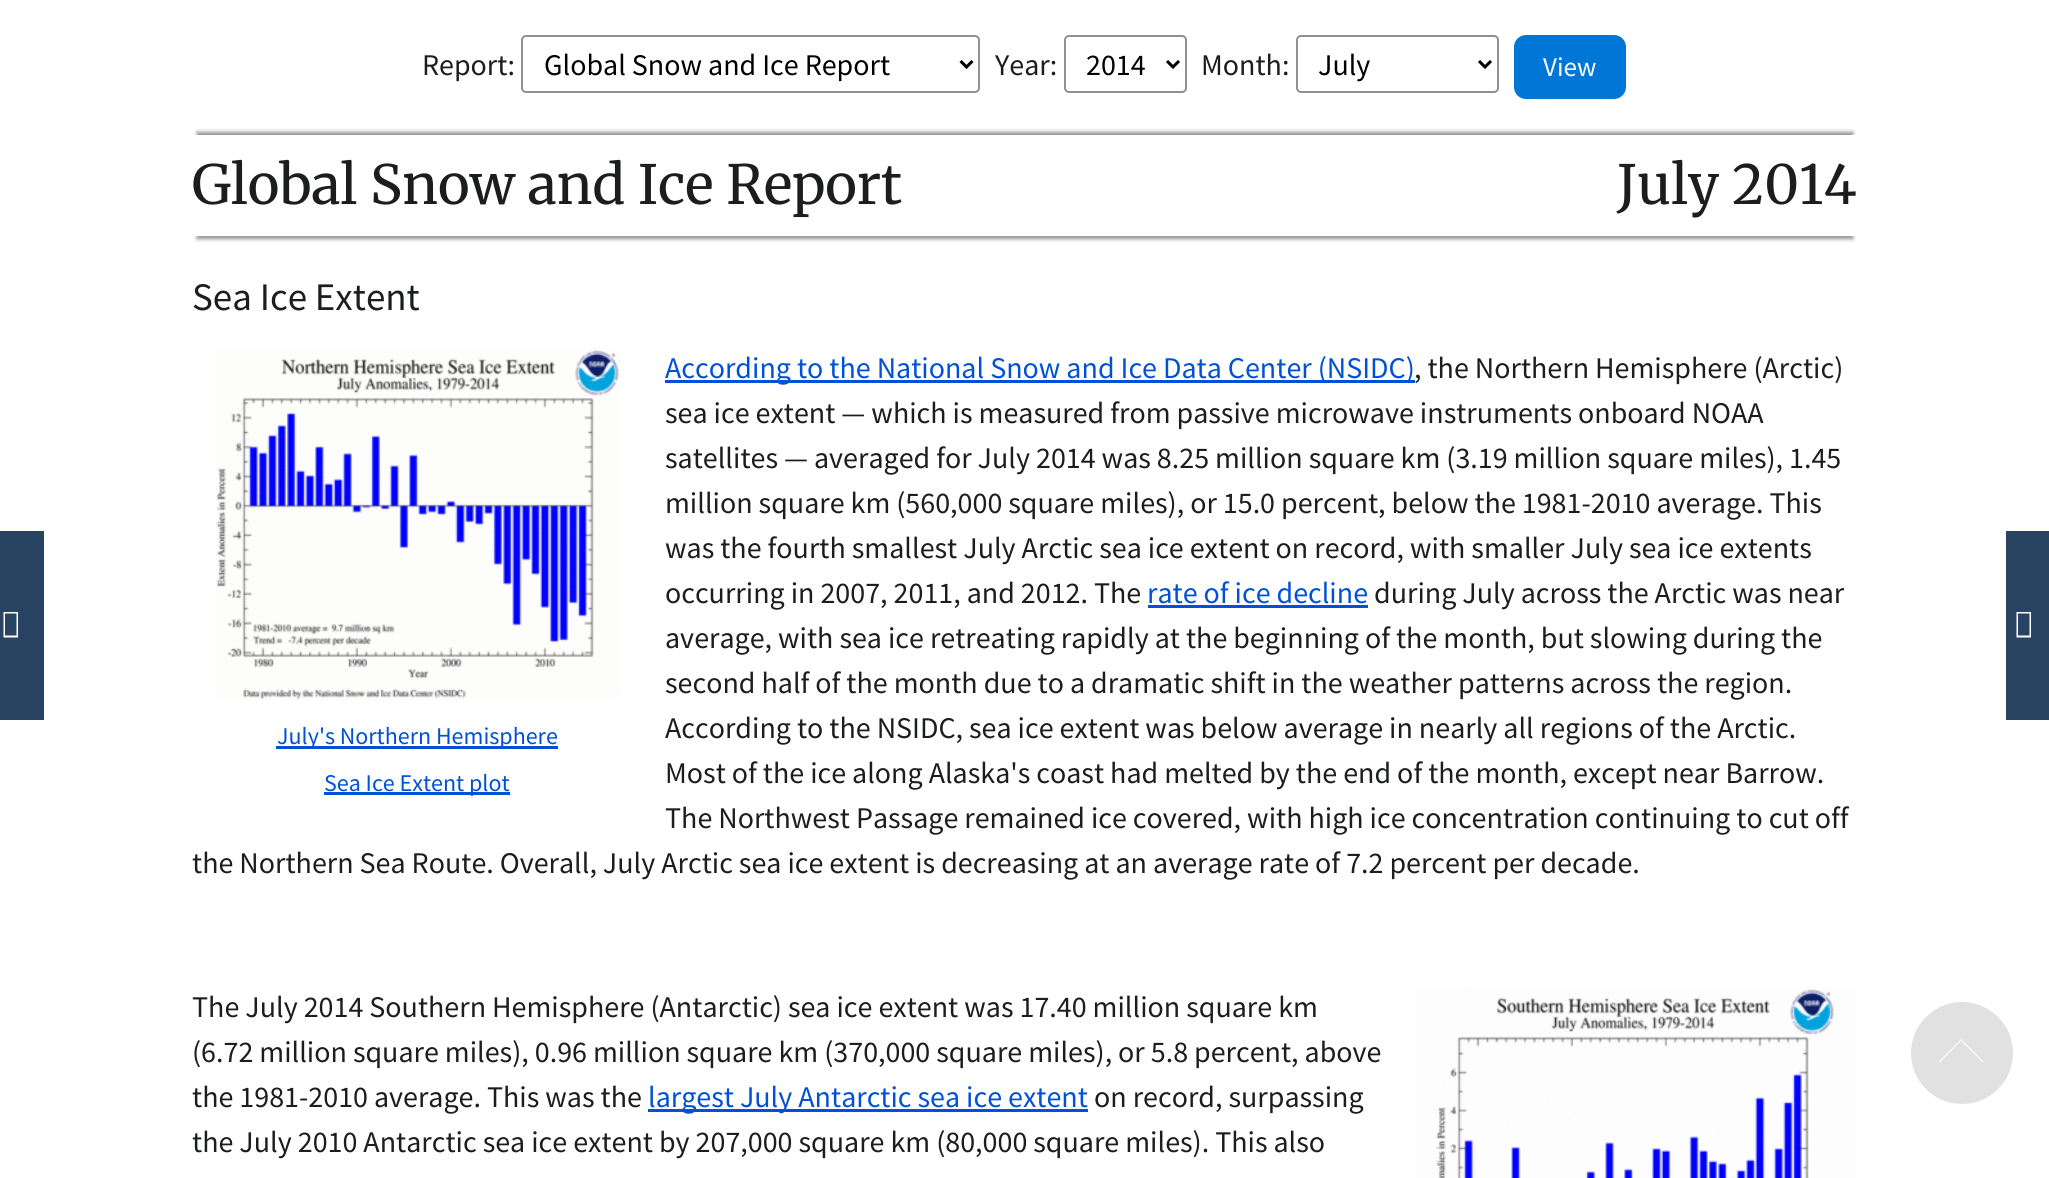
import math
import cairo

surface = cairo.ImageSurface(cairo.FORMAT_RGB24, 2049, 1178)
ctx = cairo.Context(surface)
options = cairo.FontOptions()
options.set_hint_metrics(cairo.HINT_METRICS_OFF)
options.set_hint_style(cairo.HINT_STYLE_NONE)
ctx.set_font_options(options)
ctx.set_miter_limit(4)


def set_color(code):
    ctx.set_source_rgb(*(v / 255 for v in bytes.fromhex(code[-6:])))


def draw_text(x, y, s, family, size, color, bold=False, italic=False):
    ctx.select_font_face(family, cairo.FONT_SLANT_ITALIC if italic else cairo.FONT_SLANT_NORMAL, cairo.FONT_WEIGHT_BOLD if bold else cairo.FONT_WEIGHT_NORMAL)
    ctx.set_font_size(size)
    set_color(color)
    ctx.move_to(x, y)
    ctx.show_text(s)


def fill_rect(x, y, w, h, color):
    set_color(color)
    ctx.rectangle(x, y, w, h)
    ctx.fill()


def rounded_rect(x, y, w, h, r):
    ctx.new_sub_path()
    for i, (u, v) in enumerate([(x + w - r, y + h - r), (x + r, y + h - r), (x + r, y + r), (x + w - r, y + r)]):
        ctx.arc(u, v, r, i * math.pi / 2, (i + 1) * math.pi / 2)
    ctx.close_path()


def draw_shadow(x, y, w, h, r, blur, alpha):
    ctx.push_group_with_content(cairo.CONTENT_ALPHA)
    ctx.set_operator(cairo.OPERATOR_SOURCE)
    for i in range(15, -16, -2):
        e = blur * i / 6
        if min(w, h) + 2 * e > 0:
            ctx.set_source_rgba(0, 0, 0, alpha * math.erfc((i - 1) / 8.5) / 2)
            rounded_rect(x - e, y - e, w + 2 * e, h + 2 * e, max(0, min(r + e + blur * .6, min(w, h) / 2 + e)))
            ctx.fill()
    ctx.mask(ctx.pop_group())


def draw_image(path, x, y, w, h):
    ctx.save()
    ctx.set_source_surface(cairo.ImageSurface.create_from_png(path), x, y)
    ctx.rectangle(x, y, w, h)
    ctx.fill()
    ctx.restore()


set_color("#ffffff")
ctx.paint()
draw_text(422, 75, "Report:", "Source Sans Pro", 30, "#1c1d1f")
rounded_rect(522, 36, 457, 56, 4)
set_color("#8d9297")
ctx.stroke()
ctx.new_path()
ctx.move_to(960.5, 61)
ctx.line_to(966.5, 67)
ctx.line_to(972.5, 61)
set_color("#000000")
ctx.set_line_width(3)
ctx.stroke()
draw_text(544, 75, "Global Snow and Ice Report", "Source Sans Pro", 30, "#000000")
draw_text(995, 75, "Year:", "Source Sans Pro", 30, "#1c1d1f")
rounded_rect(1065, 36, 121, 56, 4)
set_color("#8d9297")
ctx.set_line_width(2)
ctx.stroke()
ctx.new_path()
ctx.move_to(1167, 61)
ctx.line_to(1173, 67)
ctx.line_to(1179, 61)
set_color("#000000")
ctx.set_line_width(3)
ctx.stroke()
draw_text(1086, 75, "2014", "Source Sans Pro", 30, "#000000")
draw_text(1201, 75, "Month:", "Source Sans Pro", 30, "#1c1d1f")
rounded_rect(1297, 36, 201, 56, 4)
set_color("#8d9297")
ctx.set_line_width(2)
ctx.stroke()
ctx.new_path()
ctx.move_to(1479, 61)
ctx.line_to(1485, 67)
ctx.line_to(1491, 61)
set_color("#000000")
ctx.set_line_width(3)
ctx.stroke()
draw_text(1318, 75, "July", "Source Sans Pro", 30, "#000000")
set_color("#0076d6")
rounded_rect(1515.5, 36.5, 109, 61, 10.5)
ctx.fill_preserve()
ctx.stroke()
draw_text(1543, 76, "View", "Source Sans Pro", 27, "#ffffff")
ctx.save()
ctx.set_fill_rule(cairo.FILL_RULE_EVEN_ODD)
ctx.new_path()
ctx.move_to(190, 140)
ctx.line_to(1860, 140)
ctx.line_to(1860, 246)
ctx.line_to(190, 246)
ctx.close_path()
ctx.move_to(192, 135)
ctx.line_to(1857, 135)
ctx.line_to(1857, 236)
ctx.line_to(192, 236)
ctx.close_path()
ctx.clip()
set_color("#8d9297")
draw_shadow(197, 147, 1656, 92, 0, 2, 1)
ctx.restore()
ctx.save()
ctx.rectangle(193, 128, 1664, 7)
ctx.clip()
set_color("#8d9297")
draw_shadow(197, 132, 1656, 92, 0, 2, 1)
ctx.restore()
draw_text(192, 204, "Global Snow and Ice Report", "Merriweather", 54, "#1c1d1f")
draw_text(1617, 204, "July 2014", "Merriweather", 54, "#1c1d1f")
draw_text(192, 310, "Sea Ice Extent", "Source Sans Pro", 39, "#1c1d1f")
fill_rect(665, 380, 750, 3, "#0050d8")
draw_text(665, 378, "According to the National Snow and Ice Data Center (NSIDC)", "Source Sans Pro", 30, "#0050d8")
draw_text(1414, 378, ", the Northern Hemisphere (Arctic)", "Source Sans Pro", 30, "#1c1d1f")
draw_text(665, 423, "sea ice extent — which is measured from passive microwave instruments onboard NOAA", "Source Sans Pro", 30, "#1c1d1f")
draw_text(665, 468, "satellites — averaged for July 2014 was 8.25 million square km (3.19 million square miles), 1.45", "Source Sans Pro", 30, "#1c1d1f")
draw_text(665, 513, "million square km (560,000 square miles), or 15.0 percent, below the 1981-2010 average. This", "Source Sans Pro", 30, "#1c1d1f")
draw_text(665, 558, "was the fourth smallest July Arctic sea ice extent on record, with smaller July sea ice extents", "Source Sans Pro", 30, "#1c1d1f")
draw_text(665, 603, "occurring in 2007, 2011, and 2012. The", "Source Sans Pro", 30, "#1c1d1f")
draw_text(1147, 603, "rate of ice decline", "Source Sans Pro", 30, "#0050d8")
fill_rect(1148, 605, 220, 3, "#0050d8")
draw_text(1374, 603, "during July across the Arctic was near", "Source Sans Pro", 30, "#1c1d1f")
draw_text(665, 648, "average, with sea ice retreating rapidly at the beginning of the month, but slowing during the", "Source Sans Pro", 30, "#1c1d1f")
draw_text(665, 693, "second half of the month due to a dramatic shift in the weather patterns across the region.", "Source Sans Pro", 30, "#1c1d1f")
draw_text(665, 738, "According to the NSIDC, sea ice extent was below average in nearly all regions of the Arctic.", "Source Sans Pro", 30, "#1c1d1f")
draw_text(665, 783, "Most of the ice along Alaska's coast had melted by the end of the month, except near Barrow.", "Source Sans Pro", 30, "#1c1d1f")
draw_text(665, 828, "The Northwest Passage remained ice covered, with high ice concentration continuing to cut off", "Source Sans Pro", 30, "#1c1d1f")
draw_text(192, 873, "the Northern Sea Route. Overall, July Arctic sea ice extent is decreasing at an average rate of 7.2 percent per decade.", "Source Sans Pro", 30, "#1c1d1f")
draw_image("assets/img1.png", 216, 349, 404, 351)
fill_rect(276, 746, 282, 3, "#0050d8")
draw_text(277, 744, "July's Northern Hemisphere", "Source Sans Pro", 24, "#0050d8")
fill_rect(324, 792, 186, 3, "#0050d8")
draw_text(324, 791, "Sea Ice Extent plot", "Source Sans Pro", 24, "#0050d8")
draw_text(192, 1017, "The July 2014 Southern Hemisphere (Antarctic) sea ice extent was 17.40 million square km", "Source Sans Pro", 30, "#1c1d1f")
draw_text(192, 1062, "(6.72 million square miles), 0.96 million square km (370,000 square miles), or 5.8 percent, above", "Source Sans Pro", 30, "#1c1d1f")
draw_text(192, 1107, "the 1981-2010 average. This was the", "Source Sans Pro", 30, "#1c1d1f")
fill_rect(648, 1109, 440, 3, "#0050d8")
draw_text(648, 1107, "largest July Antarctic sea ice extent", "Source Sans Pro", 30, "#0050d8")
draw_text(1094, 1107, "on record, surpassing", "Source Sans Pro", 30, "#1c1d1f")
draw_text(192, 1152, "the July 2010 Antarctic sea ice extent by 207,000 square km (80,000 square miles). This also", "Source Sans Pro", 30, "#1c1d1f")
draw_image("assets/img2.png", 1415, 988, 441, 190)
fill_rect(0, 531, 44, 189, "#294362")
set_color("#ffffff")
ctx.new_path()
ctx.move_to(3.5, 637.5)
ctx.line_to(3.5, 612)
ctx.line_to(18, 612)
ctx.line_to(18, 637.5)
ctx.close_path()
ctx.move_to(5, 635.5)
ctx.line_to(16.5, 635.5)
ctx.line_to(16.5, 613.5)
ctx.line_to(5, 613.5)
ctx.close_path()
ctx.fill()
fill_rect(2006, 531, 43, 189, "#294362")
set_color("#ffffff")
ctx.new_path()
ctx.move_to(2016.5, 637.5)
ctx.line_to(2016.5, 612)
ctx.line_to(2031, 612)
ctx.line_to(2031, 637.5)
ctx.close_path()
ctx.move_to(2018, 635.5)
ctx.line_to(2029.5, 635.5)
ctx.line_to(2029.5, 613.5)
ctx.line_to(2018, 613.5)
ctx.close_path()
ctx.fill()
set_color("#e1e1e1")
ctx.arc(1962, 1053, 51, 0, 2 * math.pi)
ctx.fill()
set_color("#f6f6f6")
ctx.new_path()
ctx.move_to(1939, 1061)
ctx.line_to(1961, 1039)
ctx.line_to(1961, 1041)
ctx.line_to(1940, 1062.5)
ctx.close_path()
ctx.move_to(1961, 1039)
ctx.line_to(1983.5, 1061)
ctx.line_to(1982.5, 1062.5)
ctx.line_to(1961, 1041)
ctx.close_path()
ctx.fill()
surface.write_to_png("output.png")
